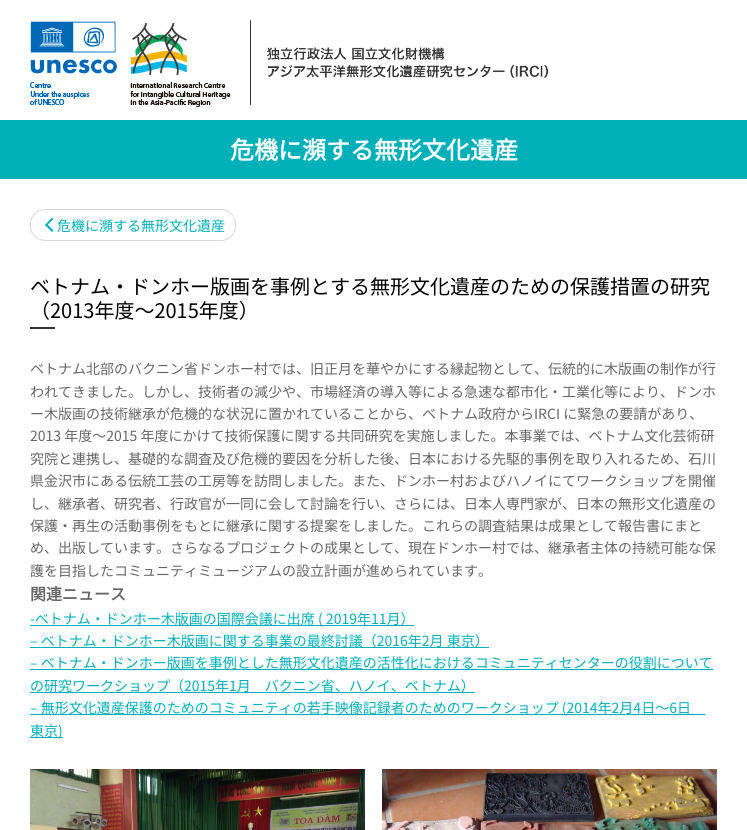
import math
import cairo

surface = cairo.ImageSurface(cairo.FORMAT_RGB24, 747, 830)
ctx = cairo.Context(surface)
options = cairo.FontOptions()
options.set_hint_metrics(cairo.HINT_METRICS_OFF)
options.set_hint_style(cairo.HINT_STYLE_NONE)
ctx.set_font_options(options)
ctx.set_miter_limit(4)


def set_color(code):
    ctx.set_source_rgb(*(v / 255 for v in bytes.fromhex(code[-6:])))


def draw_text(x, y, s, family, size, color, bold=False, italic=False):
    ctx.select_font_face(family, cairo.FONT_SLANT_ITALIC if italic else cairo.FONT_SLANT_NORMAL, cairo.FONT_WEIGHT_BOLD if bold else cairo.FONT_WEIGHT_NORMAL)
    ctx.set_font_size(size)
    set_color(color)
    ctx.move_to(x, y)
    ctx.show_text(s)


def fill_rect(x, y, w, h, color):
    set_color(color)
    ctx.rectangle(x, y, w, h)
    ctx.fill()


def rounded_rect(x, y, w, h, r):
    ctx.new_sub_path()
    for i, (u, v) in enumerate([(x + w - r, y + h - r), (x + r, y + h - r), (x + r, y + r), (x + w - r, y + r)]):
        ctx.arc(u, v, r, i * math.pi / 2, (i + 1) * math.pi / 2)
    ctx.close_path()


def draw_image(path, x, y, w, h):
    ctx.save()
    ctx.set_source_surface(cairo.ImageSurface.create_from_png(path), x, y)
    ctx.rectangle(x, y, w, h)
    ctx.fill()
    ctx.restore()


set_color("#ffffff")
ctx.paint()
draw_image("assets/img1.png", 30, 20, 519, 87)
fill_rect(0, 120, 747, 59, "#00b0b9")
draw_text(230, 159, "危機に瀕する無形文化遺産", "Noto Sans CJK JP", 24, "#ffffff", bold=True)
rounded_rect(30.5, 209.5, 205, 31, 14.5)
set_color("#d8d8d8")
ctx.set_line_width(1)
ctx.stroke()
set_color("#00b0b9")
ctx.new_path()
ctx.move_to(52, 232)
ctx.line_to(45, 225)
ctx.line_to(46.5, 223.5)
ctx.line_to(53.5, 230.5)
ctx.close_path()
ctx.fill()
ctx.new_path()
ctx.move_to(46.5, 226)
ctx.line_to(45, 225)
ctx.line_to(52, 217.5)
ctx.line_to(53.5, 219)
ctx.close_path()
ctx.fill()
draw_text(57, 231, "危機に瀕する無形文化遺産", "Noto Sans CJK JP", 14, "#00b0b9")
draw_text(30, 294, "ベトナム・ドンホー版画を事例とする無形文化遺産のための保護措置の研究", "Noto Sans CJK JP", 20, "#000000")
draw_text(30, 318, "（2013年度～2015年度）", "Noto Sans CJK JP", 20, "#000000")
fill_rect(30, 327, 25, 2, "#333333")
draw_text(30, 374, "ベトナム北部のバクニン省ドンホー村では、旧正月を華やかにする縁起物として、伝統的に木版画の制作が行", "Noto Sans CJK JP", 14, "#666666")
draw_text(30, 397, "われてきました。しかし、技術者の減少や、市場経済の導入等による急速な都市化・工業化等により、ドンホ", "Noto Sans CJK JP", 14, "#666666")
draw_text(30, 419, "ー木版画の技術継承が危機的な状況に置かれていることから、ベトナム政府からIRCI に緊急の要請があり、", "Noto Sans CJK JP", 14, "#666666")
draw_text(30, 441, "2013 年度〜2015 年度にかけて技術保護に関する共同研究を実施しました。本事業では、ベトナム文化芸術研", "Noto Sans CJK JP", 14, "#666666")
draw_text(30, 464, "究院と連携し、基礎的な調査及び危機的要因を分析した後、日本における先駆的事例を取り入れるため、石川", "Noto Sans CJK JP", 14, "#666666")
draw_text(30, 486, "県金沢市にある伝統工芸の工房等を訪問しました。また、ドンホー村およびハノイにてワークショップを開催", "Noto Sans CJK JP", 14, "#666666")
draw_text(30, 509, "し、継承者、研究者、行政官が一同に会して討論を行い、さらには、日本人専門家が、日本の無形文化遺産の", "Noto Sans CJK JP", 14, "#666666")
draw_text(30, 531, "保護・再生の活動事例をもとに継承に関する提案をしました。これらの調査結果は成果として報告書にまと", "Noto Sans CJK JP", 14, "#666666")
draw_text(30, 553, "め、出版しています。さらなるプロジェクトの成果として、現在ドンホー村では、継承者主体の持続可能な保", "Noto Sans CJK JP", 14, "#666666")
draw_text(30, 576, "護を目指したコミュニティミュージアムの設立計画が進められています。", "Noto Sans CJK JP", 14, "#666666")
draw_text(30, 600, "関連ニュース", "Noto Sans CJK JP", 16, "#666666", bold=True)
fill_rect(30, 625, 384, 1, "#00b0b9")
draw_text(30, 624, "-ベトナム・ドンホー木版画の国際会議に出席 ( 2019年11月）", "Noto Sans CJK JP", 14, "#00b0b9")
fill_rect(30, 647, 459, 1, "#00b0b9")
draw_text(30, 646, "– ベトナム・ドンホー木版画に関する事業の最終討議（2016年2月 東京）", "Noto Sans CJK JP", 14, "#00b0b9")
fill_rect(30, 669, 683, 1, "#00b0b9")
draw_text(30, 668, "– ベトナム・ドンホー版画を事例とした無形文化遺産の活性化におけるコミュニティセンターの役割について", "Noto Sans CJK JP", 14, "#00b0b9")
fill_rect(30, 692, 445, 1, "#00b0b9")
draw_text(30, 691, "の研究ワークショップ（2015年1月　バクニン省、ハノイ、ベトナム）", "Noto Sans CJK JP", 14, "#00b0b9")
fill_rect(30, 714, 675, 1, "#00b0b9")
draw_text(30, 713, "– 無形文化遺産保護のためのコミュニティの若手映像記録者のためのワークショップ (2014年2月4日～6日", "Noto Sans CJK JP", 14, "#00b0b9")
fill_rect(30, 737, 33, 1, "#00b0b9")
draw_text(30, 736, "東京)", "Noto Sans CJK JP", 14, "#00b0b9")
draw_image("assets/img2.png", 30, 769, 335, 61)
draw_image("assets/img3.png", 382, 769, 335, 61)
surface.write_to_png("output.png")
